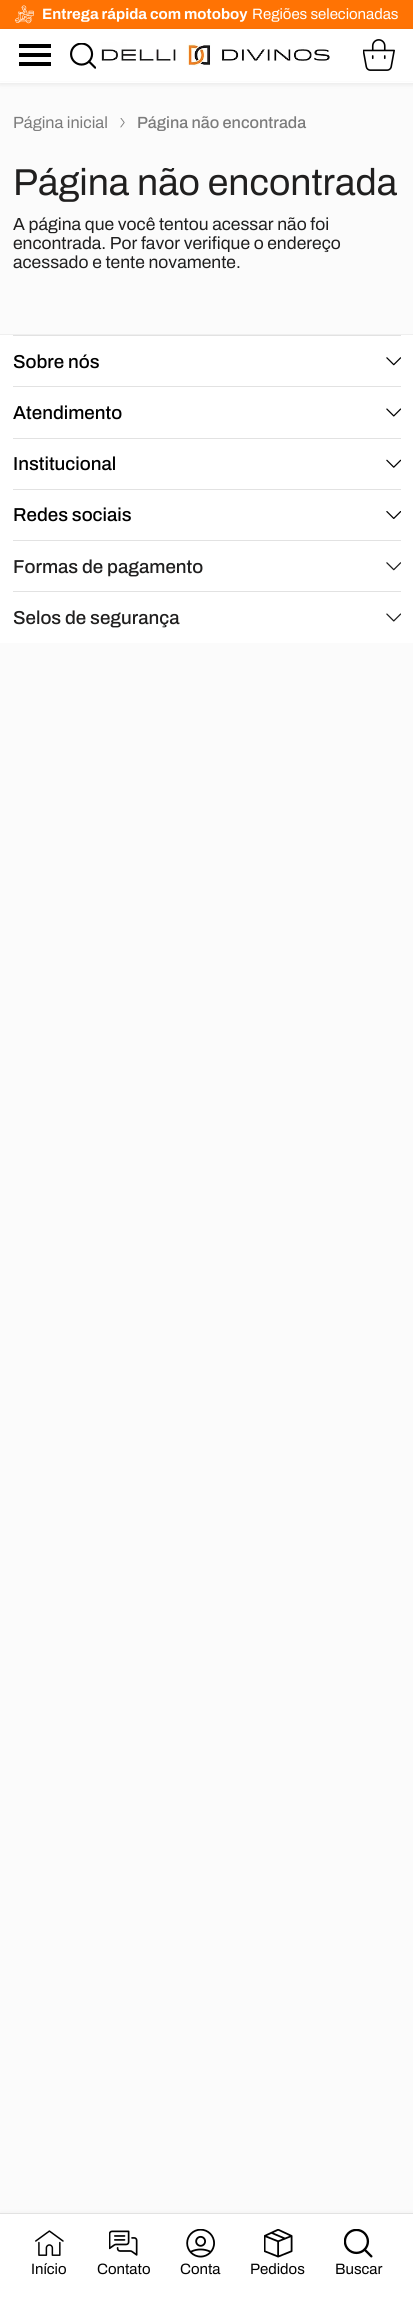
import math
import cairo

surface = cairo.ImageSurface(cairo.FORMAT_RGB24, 413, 2299)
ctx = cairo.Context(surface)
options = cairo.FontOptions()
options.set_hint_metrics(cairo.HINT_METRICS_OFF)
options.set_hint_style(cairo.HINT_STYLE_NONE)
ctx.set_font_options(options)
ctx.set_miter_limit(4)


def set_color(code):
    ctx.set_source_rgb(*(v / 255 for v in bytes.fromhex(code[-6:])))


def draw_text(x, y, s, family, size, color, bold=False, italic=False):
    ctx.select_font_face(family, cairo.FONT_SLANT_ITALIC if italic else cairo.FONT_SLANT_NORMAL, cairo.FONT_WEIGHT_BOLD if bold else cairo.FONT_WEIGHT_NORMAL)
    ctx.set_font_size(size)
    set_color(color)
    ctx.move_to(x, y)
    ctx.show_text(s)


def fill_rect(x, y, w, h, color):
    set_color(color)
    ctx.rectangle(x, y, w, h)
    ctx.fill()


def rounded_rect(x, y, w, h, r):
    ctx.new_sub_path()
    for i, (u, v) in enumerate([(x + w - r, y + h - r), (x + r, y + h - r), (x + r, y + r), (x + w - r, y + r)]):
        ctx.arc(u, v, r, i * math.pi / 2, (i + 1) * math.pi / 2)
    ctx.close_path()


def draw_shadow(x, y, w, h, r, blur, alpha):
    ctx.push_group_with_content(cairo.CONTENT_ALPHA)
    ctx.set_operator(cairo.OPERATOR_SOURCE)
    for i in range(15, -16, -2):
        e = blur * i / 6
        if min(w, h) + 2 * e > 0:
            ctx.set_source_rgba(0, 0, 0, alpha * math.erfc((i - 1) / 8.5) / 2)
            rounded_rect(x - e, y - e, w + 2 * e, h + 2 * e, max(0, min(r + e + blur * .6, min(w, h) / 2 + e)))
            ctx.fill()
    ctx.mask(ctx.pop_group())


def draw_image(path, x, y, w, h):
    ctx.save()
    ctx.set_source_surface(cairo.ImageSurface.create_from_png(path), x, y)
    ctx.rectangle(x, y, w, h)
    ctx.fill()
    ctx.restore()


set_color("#fbfbfb")
ctx.paint()
fill_rect(0, 0, 413, 29, "#ff7304")
draw_image("assets/img1.png", 15, 5, 19, 19)
draw_text(42, 19, "Entrega rápida com motoboy", "Archivo", 15, "#ffffff", bold=True)
draw_text(252, 19, "Regiões selecionadas", "Archivo", 15, "#ffffff")
set_color("#525252")
draw_shadow(0, 30, 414, 54, 0, 2.5, 0.13)
fill_rect(0, 29, 413, 54, "#ffffff")
fill_rect(0, 81, 413, 1, "#fcfcfc")
fill_rect(19, 62, 32, 4, "#000000")
fill_rect(19, 53, 32, 4, "#000000")
fill_rect(19, 44, 32, 4, "#000000")
draw_image("assets/img2.png", 70, 43, 26, 26)
draw_image("assets/img3.png", 101, 42, 229, 24)
draw_image("assets/img4.png", 363, 39, 32, 32)
draw_text(13, 128, "Página inicial", "Archivo", 16.25, "#7b7b7b")
draw_image("assets/img5.png", 120, 118, 5, 10)
draw_text(137, 128, "Página não encontrada", "Archivo Medium", 16.25, "#7b7b7b")
draw_text(13, 195, "Página não encontrada", "Archivo", 37.5, "#201f1f")
draw_text(13, 230, "A página que você tentou acessar não foi", "Archivo", 17.5, "#201f1f")
draw_text(13, 249, "encontrada. Por favor verifique o endereço", "Archivo", 17.5, "#201f1f")
draw_text(13, 268, "acessado e tente novamente.", "Archivo", 17.5, "#201f1f")
fill_rect(0, 334, 413, 1, "#efefef")
fill_rect(0, 335, 413, 308, "#ffffff")
fill_rect(13, 335, 388, 1, "#e2e2e2")
draw_text(13, 368, "Sobre nós", "Archivo Medium", 18.75, "#000000")
draw_image("assets/img6.png", 386, 357, 15, 9)
fill_rect(13, 386, 388, 1, "#e2e2e2")
draw_text(13, 419, "Atendimento", "Archivo Medium", 18.75, "#000000")
draw_image("assets/img7.png", 386, 408, 15, 9)
fill_rect(13, 438, 388, 1, "#e2e2e2")
draw_text(13, 470, "Institucional", "Archivo Medium", 18.75, "#000000")
draw_image("assets/img8.png", 386, 459, 15, 9)
fill_rect(13, 489, 388, 1, "#e2e2e2")
draw_text(13, 521, "Redes sociais", "Archivo Medium", 18.75, "#000000")
draw_image("assets/img9.png", 386, 511, 15, 8)
fill_rect(13, 540, 388, 1, "#e2e2e2")
draw_text(13, 573, "Formas de pagamento", "Archivo Medium", 18.75, "#201f1f")
draw_image("assets/img10.png", 386, 562, 15, 9)
fill_rect(13, 591, 388, 1, "#e2e2e2")
draw_text(13, 624, "Selos de segurança", "Archivo Medium", 18.75, "#201f1f")
draw_image("assets/img11.png", 386, 613, 15, 9)
set_color("#525252")
draw_shadow(0, 2213, 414, 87, 0, 2.5, 0.08)
fill_rect(0, 2214, 413, 85, "#ffffff")
fill_rect(0, 2213, 413, 1, "#e2e2e2")
draw_image("assets/img12.png", 35, 2230, 29, 26)
draw_text(31, 2274, "Início", "Archivo", 15, "#000000")
draw_image("assets/img13.png", 109, 2230, 29, 26)
draw_text(97, 2274, "Contato", "Archivo", 15, "#000000")
draw_image("assets/img14.png", 186, 2229, 29, 29)
draw_text(180, 2274, "Conta", "Archivo", 15, "#000000")
draw_image("assets/img15.png", 264, 2229, 29, 29)
draw_text(250, 2274, "Pedidos", "Archivo", 15, "#000000")
draw_image("assets/img16.png", 344, 2229, 29, 29)
draw_text(335, 2274, "Buscar", "Archivo", 15, "#000000")
surface.write_to_png("output.png")
